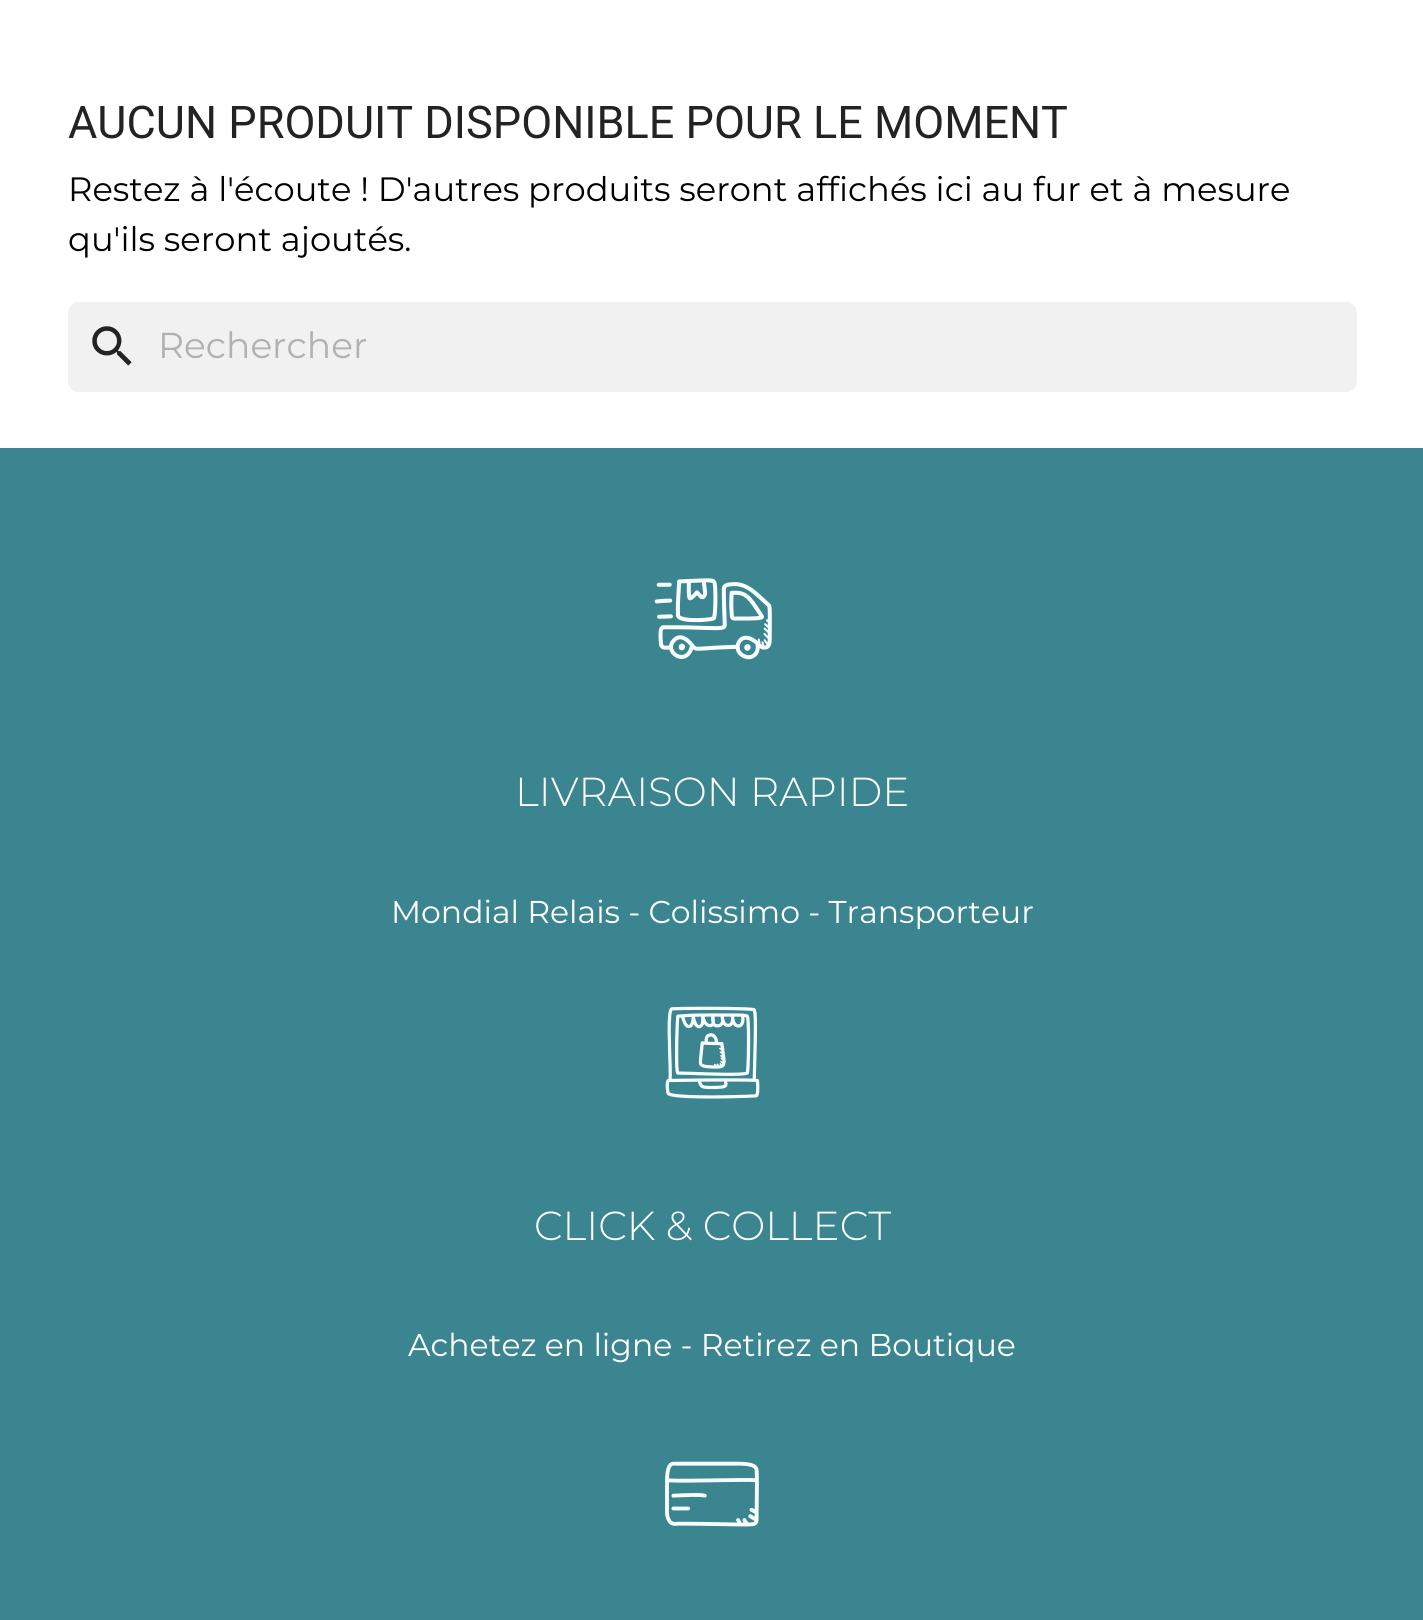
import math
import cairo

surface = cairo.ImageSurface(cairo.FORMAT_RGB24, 1423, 1620)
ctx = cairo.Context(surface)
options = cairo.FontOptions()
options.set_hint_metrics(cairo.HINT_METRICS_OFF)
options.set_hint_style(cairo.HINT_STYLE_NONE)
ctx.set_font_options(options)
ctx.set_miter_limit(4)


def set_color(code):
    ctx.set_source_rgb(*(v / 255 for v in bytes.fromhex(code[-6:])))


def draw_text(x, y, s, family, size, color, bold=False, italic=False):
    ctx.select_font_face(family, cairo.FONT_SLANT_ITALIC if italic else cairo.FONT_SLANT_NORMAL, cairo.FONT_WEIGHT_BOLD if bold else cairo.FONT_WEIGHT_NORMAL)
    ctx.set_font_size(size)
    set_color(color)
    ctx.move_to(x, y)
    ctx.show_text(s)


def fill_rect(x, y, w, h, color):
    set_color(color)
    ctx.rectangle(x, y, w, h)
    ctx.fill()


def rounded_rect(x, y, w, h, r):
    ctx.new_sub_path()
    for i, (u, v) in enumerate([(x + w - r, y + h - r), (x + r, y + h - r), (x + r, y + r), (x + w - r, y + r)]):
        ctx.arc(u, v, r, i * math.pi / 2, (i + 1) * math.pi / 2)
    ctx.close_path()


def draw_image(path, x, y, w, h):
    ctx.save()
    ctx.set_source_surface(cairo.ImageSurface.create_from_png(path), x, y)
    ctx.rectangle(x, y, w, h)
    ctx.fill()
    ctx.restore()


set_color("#ffffff")
ctx.paint()
draw_text(68, 138, "AUCUN PRODUIT DISPONIBLE POUR LE MOMENT", "Roboto", 45, "#232323")
draw_text(68, 201, "Restez à l'écoute ! D'autres produits seront affichés ici au fur et à mesure", "Montserrat", 33.75, "#000000")
draw_text(68, 251, "qu'ils seront ajoutés.", "Montserrat", 33.75, "#000000")
set_color("#f1f1f1")
rounded_rect(68, 302, 1289, 90, 11)
ctx.fill()
draw_image("assets/img1.png", 92, 326, 40, 40)
draw_text(158, 358, "Rechercher", "Montserrat", 36, "#b1b1b1")
fill_rect(0, 448, 1423, 1172, "#3b8590")
draw_image("assets/img2.png", 654, 578, 118, 82)
draw_text(515, 806, "LIVRAISON RAPIDE", "Montserrat Light", 40.5, "#ffffff")
draw_text(391, 923, "Mondial Relais - Colissimo - Transporteur", "Montserrat", 31.5, "#ffffff")
draw_image("assets/img3.png", 665, 1006, 95, 93)
draw_text(534, 1240, "CLICK & COLLECT", "Montserrat Light", 40.5, "#ffffff")
draw_text(408, 1356, "Achetez en ligne - Retirez en Boutique", "Montserrat", 31.5, "#ffffff")
draw_image("assets/img4.png", 665, 1461, 94, 66)
surface.write_to_png("output.png")
